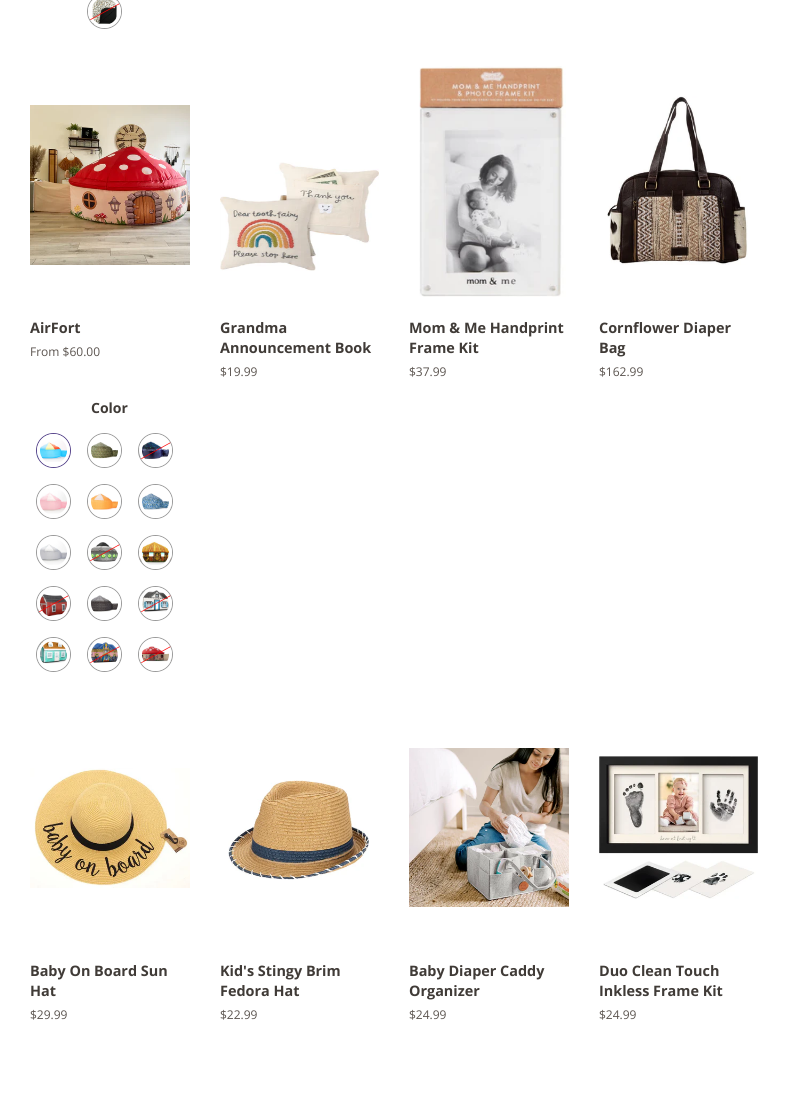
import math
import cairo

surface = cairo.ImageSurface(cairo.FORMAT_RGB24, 788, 1114)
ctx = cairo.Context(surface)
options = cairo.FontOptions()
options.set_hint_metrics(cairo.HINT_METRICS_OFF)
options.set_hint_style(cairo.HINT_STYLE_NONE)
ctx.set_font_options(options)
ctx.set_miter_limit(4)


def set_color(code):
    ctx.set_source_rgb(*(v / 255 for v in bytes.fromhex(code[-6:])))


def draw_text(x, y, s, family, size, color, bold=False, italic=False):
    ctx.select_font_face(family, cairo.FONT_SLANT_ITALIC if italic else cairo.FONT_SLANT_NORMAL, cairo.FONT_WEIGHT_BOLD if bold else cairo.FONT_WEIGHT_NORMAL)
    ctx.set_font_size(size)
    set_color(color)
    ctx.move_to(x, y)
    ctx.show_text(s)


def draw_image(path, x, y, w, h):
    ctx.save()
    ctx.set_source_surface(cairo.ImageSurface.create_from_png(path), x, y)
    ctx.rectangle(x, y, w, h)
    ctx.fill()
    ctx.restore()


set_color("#ffffff")
ctx.paint()
draw_image("assets/img1.png", 92, 0, 25, 25)
ctx.arc(104.5, 11.5, 17, 0, 2 * math.pi)
set_color("#9b9b9b")
ctx.set_line_width(1)
ctx.stroke()
ctx.arc(104.5, 11.5, 15, 0, 2 * math.pi)
set_color("#ffffff")
ctx.set_line_width(3)
ctx.stroke()
set_color("#ff0000")
ctx.new_path()
ctx.move_to(90, 19.5)
ctx.line_to(119, 3.5)
ctx.line_to(119.5, 4)
ctx.line_to(90.5, 20)
ctx.close_path()
ctx.fill()
draw_image("assets/img2.png", 30, 105, 160, 160)
draw_text(30, 333, "AirFort", "Open Sans", 14.4, "#403b37", bold=True)
draw_text(30, 356, "From $60.00", "Open Sans", 12, "#5b544f")
draw_text(91, 413, "Color", "Open Sans", 14, "#403b37", bold=True)
draw_image("assets/img3.png", 37, 439, 33, 23)
ctx.arc(53.5, 450.5, 17, 0, 2 * math.pi)
set_color("#58468c")
ctx.set_line_width(1)
ctx.stroke()
ctx.arc(53.5, 450.5, 15, 0, 2 * math.pi)
set_color("#ffffff")
ctx.set_line_width(3)
ctx.stroke()
draw_image("assets/img4.png", 88, 442, 33, 17)
ctx.arc(104.5, 450.5, 17, 0, 2 * math.pi)
set_color("#9b9b9b")
ctx.set_line_width(1)
ctx.stroke()
ctx.arc(104.5, 450.5, 15, 0, 2 * math.pi)
set_color("#ffffff")
ctx.set_line_width(3)
ctx.stroke()
draw_image("assets/img5.png", 139, 441, 33, 18)
ctx.arc(155.5, 450.5, 17, 0, 2 * math.pi)
set_color("#9b9b9b")
ctx.set_line_width(1)
ctx.stroke()
ctx.arc(155.5, 450.5, 15, 0, 2 * math.pi)
set_color("#ffffff")
ctx.set_line_width(3)
ctx.stroke()
set_color("#ff0000")
ctx.new_path()
ctx.move_to(141, 458.5)
ctx.line_to(170, 442.5)
ctx.line_to(170.5, 443)
ctx.line_to(141.5, 459)
ctx.close_path()
ctx.fill()
draw_image("assets/img6.png", 37, 490, 33, 24)
ctx.arc(53.5, 501.5, 17, 0, 2 * math.pi)
set_color("#9b9b9b")
ctx.set_line_width(1)
ctx.stroke()
ctx.arc(53.5, 501.5, 15, 0, 2 * math.pi)
set_color("#ffffff")
ctx.set_line_width(3)
ctx.stroke()
draw_image("assets/img7.png", 88, 493, 33, 17)
ctx.arc(104.5, 501.5, 17, 0, 2 * math.pi)
set_color("#9b9b9b")
ctx.set_line_width(1)
ctx.stroke()
ctx.arc(104.5, 501.5, 15, 0, 2 * math.pi)
set_color("#ffffff")
ctx.set_line_width(3)
ctx.stroke()
draw_image("assets/img8.png", 139, 493, 33, 17)
ctx.arc(155.5, 501.5, 17, 0, 2 * math.pi)
set_color("#9b9b9b")
ctx.set_line_width(1)
ctx.stroke()
ctx.arc(155.5, 501.5, 15, 0, 2 * math.pi)
set_color("#ffffff")
ctx.set_line_width(3)
ctx.stroke()
draw_image("assets/img9.png", 37, 540, 33, 25)
ctx.arc(53.5, 552.5, 17, 0, 2 * math.pi)
set_color("#9b9b9b")
ctx.set_line_width(1)
ctx.stroke()
ctx.arc(53.5, 552.5, 15, 0, 2 * math.pi)
set_color("#ffffff")
ctx.set_line_width(3)
ctx.stroke()
draw_image("assets/img10.png", 88, 542, 33, 20)
ctx.arc(104.5, 552.5, 17, 0, 2 * math.pi)
set_color("#9b9b9b")
ctx.set_line_width(1)
ctx.stroke()
ctx.arc(104.5, 552.5, 15, 0, 2 * math.pi)
set_color("#ffffff")
ctx.set_line_width(3)
ctx.stroke()
set_color("#ff0000")
ctx.new_path()
ctx.move_to(90, 560.5)
ctx.line_to(119, 544.5)
ctx.line_to(119.5, 545)
ctx.line_to(90.5, 561)
ctx.close_path()
ctx.fill()
draw_image("assets/img11.png", 139, 541, 33, 24)
ctx.arc(155.5, 552.5, 17, 0, 2 * math.pi)
set_color("#9b9b9b")
ctx.set_line_width(1)
ctx.stroke()
ctx.arc(155.5, 552.5, 15, 0, 2 * math.pi)
set_color("#ffffff")
ctx.set_line_width(3)
ctx.stroke()
draw_image("assets/img12.png", 37, 593, 33, 24)
ctx.arc(53.5, 603.5, 17, 0, 2 * math.pi)
set_color("#9b9b9b")
ctx.set_line_width(1)
ctx.stroke()
ctx.arc(53.5, 603.5, 15, 0, 2 * math.pi)
set_color("#ffffff")
ctx.set_line_width(3)
ctx.stroke()
set_color("#ff0000")
ctx.new_path()
ctx.move_to(39, 611.5)
ctx.line_to(68, 595.5)
ctx.line_to(68.5, 596)
ctx.line_to(39.5, 612)
ctx.close_path()
ctx.fill()
draw_image("assets/img13.png", 88, 595, 33, 17)
ctx.arc(104.5, 603.5, 17, 0, 2 * math.pi)
set_color("#9b9b9b")
ctx.set_line_width(1)
ctx.stroke()
ctx.arc(104.5, 603.5, 15, 0, 2 * math.pi)
set_color("#ffffff")
ctx.set_line_width(3)
ctx.stroke()
draw_image("assets/img14.png", 139, 590, 33, 22)
ctx.arc(155.5, 603.5, 17, 0, 2 * math.pi)
set_color("#9b9b9b")
ctx.set_line_width(1)
ctx.stroke()
ctx.arc(155.5, 603.5, 15, 0, 2 * math.pi)
set_color("#ffffff")
ctx.set_line_width(3)
ctx.stroke()
set_color("#ff0000")
ctx.new_path()
ctx.move_to(141, 611.5)
ctx.line_to(170, 595.5)
ctx.line_to(170.5, 596)
ctx.line_to(141.5, 612)
ctx.close_path()
ctx.fill()
draw_image("assets/img15.png", 37, 641, 33, 23)
ctx.arc(53.5, 654.5, 17, 0, 2 * math.pi)
set_color("#9b9b9b")
ctx.set_line_width(1)
ctx.stroke()
ctx.arc(53.5, 654.5, 15, 0, 2 * math.pi)
set_color("#ffffff")
ctx.set_line_width(3)
ctx.stroke()
draw_image("assets/img16.png", 89, 642, 32, 21)
ctx.arc(104.5, 654.5, 17, 0, 2 * math.pi)
set_color("#9b9b9b")
ctx.set_line_width(1)
ctx.stroke()
ctx.arc(104.5, 654.5, 15, 0, 2 * math.pi)
set_color("#ffffff")
ctx.set_line_width(3)
ctx.stroke()
set_color("#ff0000")
ctx.new_path()
ctx.move_to(90, 662.5)
ctx.line_to(119, 646.5)
ctx.line_to(119.5, 647)
ctx.line_to(90.5, 663)
ctx.close_path()
ctx.fill()
draw_image("assets/img17.png", 139, 646, 33, 16)
ctx.arc(155.5, 654.5, 17, 0, 2 * math.pi)
set_color("#9b9b9b")
ctx.set_line_width(1)
ctx.stroke()
ctx.arc(155.5, 654.5, 15, 0, 2 * math.pi)
set_color("#ffffff")
ctx.set_line_width(3)
ctx.stroke()
set_color("#ff0000")
ctx.new_path()
ctx.move_to(141, 662.5)
ctx.line_to(170, 646.5)
ctx.line_to(170.5, 647)
ctx.line_to(141.5, 663)
ctx.close_path()
ctx.fill()
draw_image("assets/img18.png", 220, 162, 159, 109)
draw_text(220, 333, "Grandma", "Open Sans", 14.4, "#403b37", bold=True)
draw_text(220, 353, "Announcement Book", "Open Sans", 14.4, "#403b37", bold=True)
draw_text(220, 376, "$19.99", "Open Sans", 12, "#5b544f")
draw_image("assets/img19.png", 419, 66, 147, 231)
draw_text(409, 333, "Mom & Me Handprint", "Open Sans", 14.4, "#403b37", bold=True)
draw_text(409, 353, "Frame Kit", "Open Sans", 14.4, "#403b37", bold=True)
draw_text(409, 376, "$37.99", "Open Sans", 12, "#5b544f")
draw_image("assets/img20.png", 607, 96, 141, 169)
draw_text(599, 333, "Cornflower Diaper", "Open Sans", 14.4, "#403b37", bold=True)
draw_text(599, 353, "Bag", "Open Sans", 14.4, "#403b37", bold=True)
draw_text(599, 376, "$162.99", "Open Sans", 12, "#5b544f")
draw_image("assets/img21.png", 30, 768, 160, 120)
draw_text(30, 976, "Baby On Board Sun", "Open Sans", 14.4, "#403b37", bold=True)
draw_text(30, 996, "Hat", "Open Sans", 14.4, "#403b37", bold=True)
draw_text(30, 1019, "$29.99", "Open Sans", 12, "#5b544f")
draw_image("assets/img22.png", 228, 780, 141, 100)
draw_text(220, 976, "Kid's Stingy Brim", "Open Sans", 14.4, "#403b37", bold=True)
draw_text(220, 996, "Fedora Hat", "Open Sans", 14.4, "#403b37", bold=True)
draw_text(220, 1019, "$22.99", "Open Sans", 12, "#5b544f")
draw_image("assets/img23.png", 409, 748, 160, 159)
draw_text(409, 976, "Baby Diaper Caddy", "Open Sans", 14.4, "#403b37", bold=True)
draw_text(409, 996, "Organizer", "Open Sans", 14.4, "#403b37", bold=True)
draw_text(409, 1019, "$24.99", "Open Sans", 12, "#5b544f")
draw_image("assets/img24.png", 599, 756, 159, 143)
draw_text(599, 976, "Duo Clean Touch", "Open Sans", 14.4, "#403b37", bold=True)
draw_text(599, 996, "Inkless Frame Kit", "Open Sans", 14.4, "#403b37", bold=True)
draw_text(599, 1019, "$24.99", "Open Sans", 12, "#5b544f")
surface.write_to_png("output.png")
